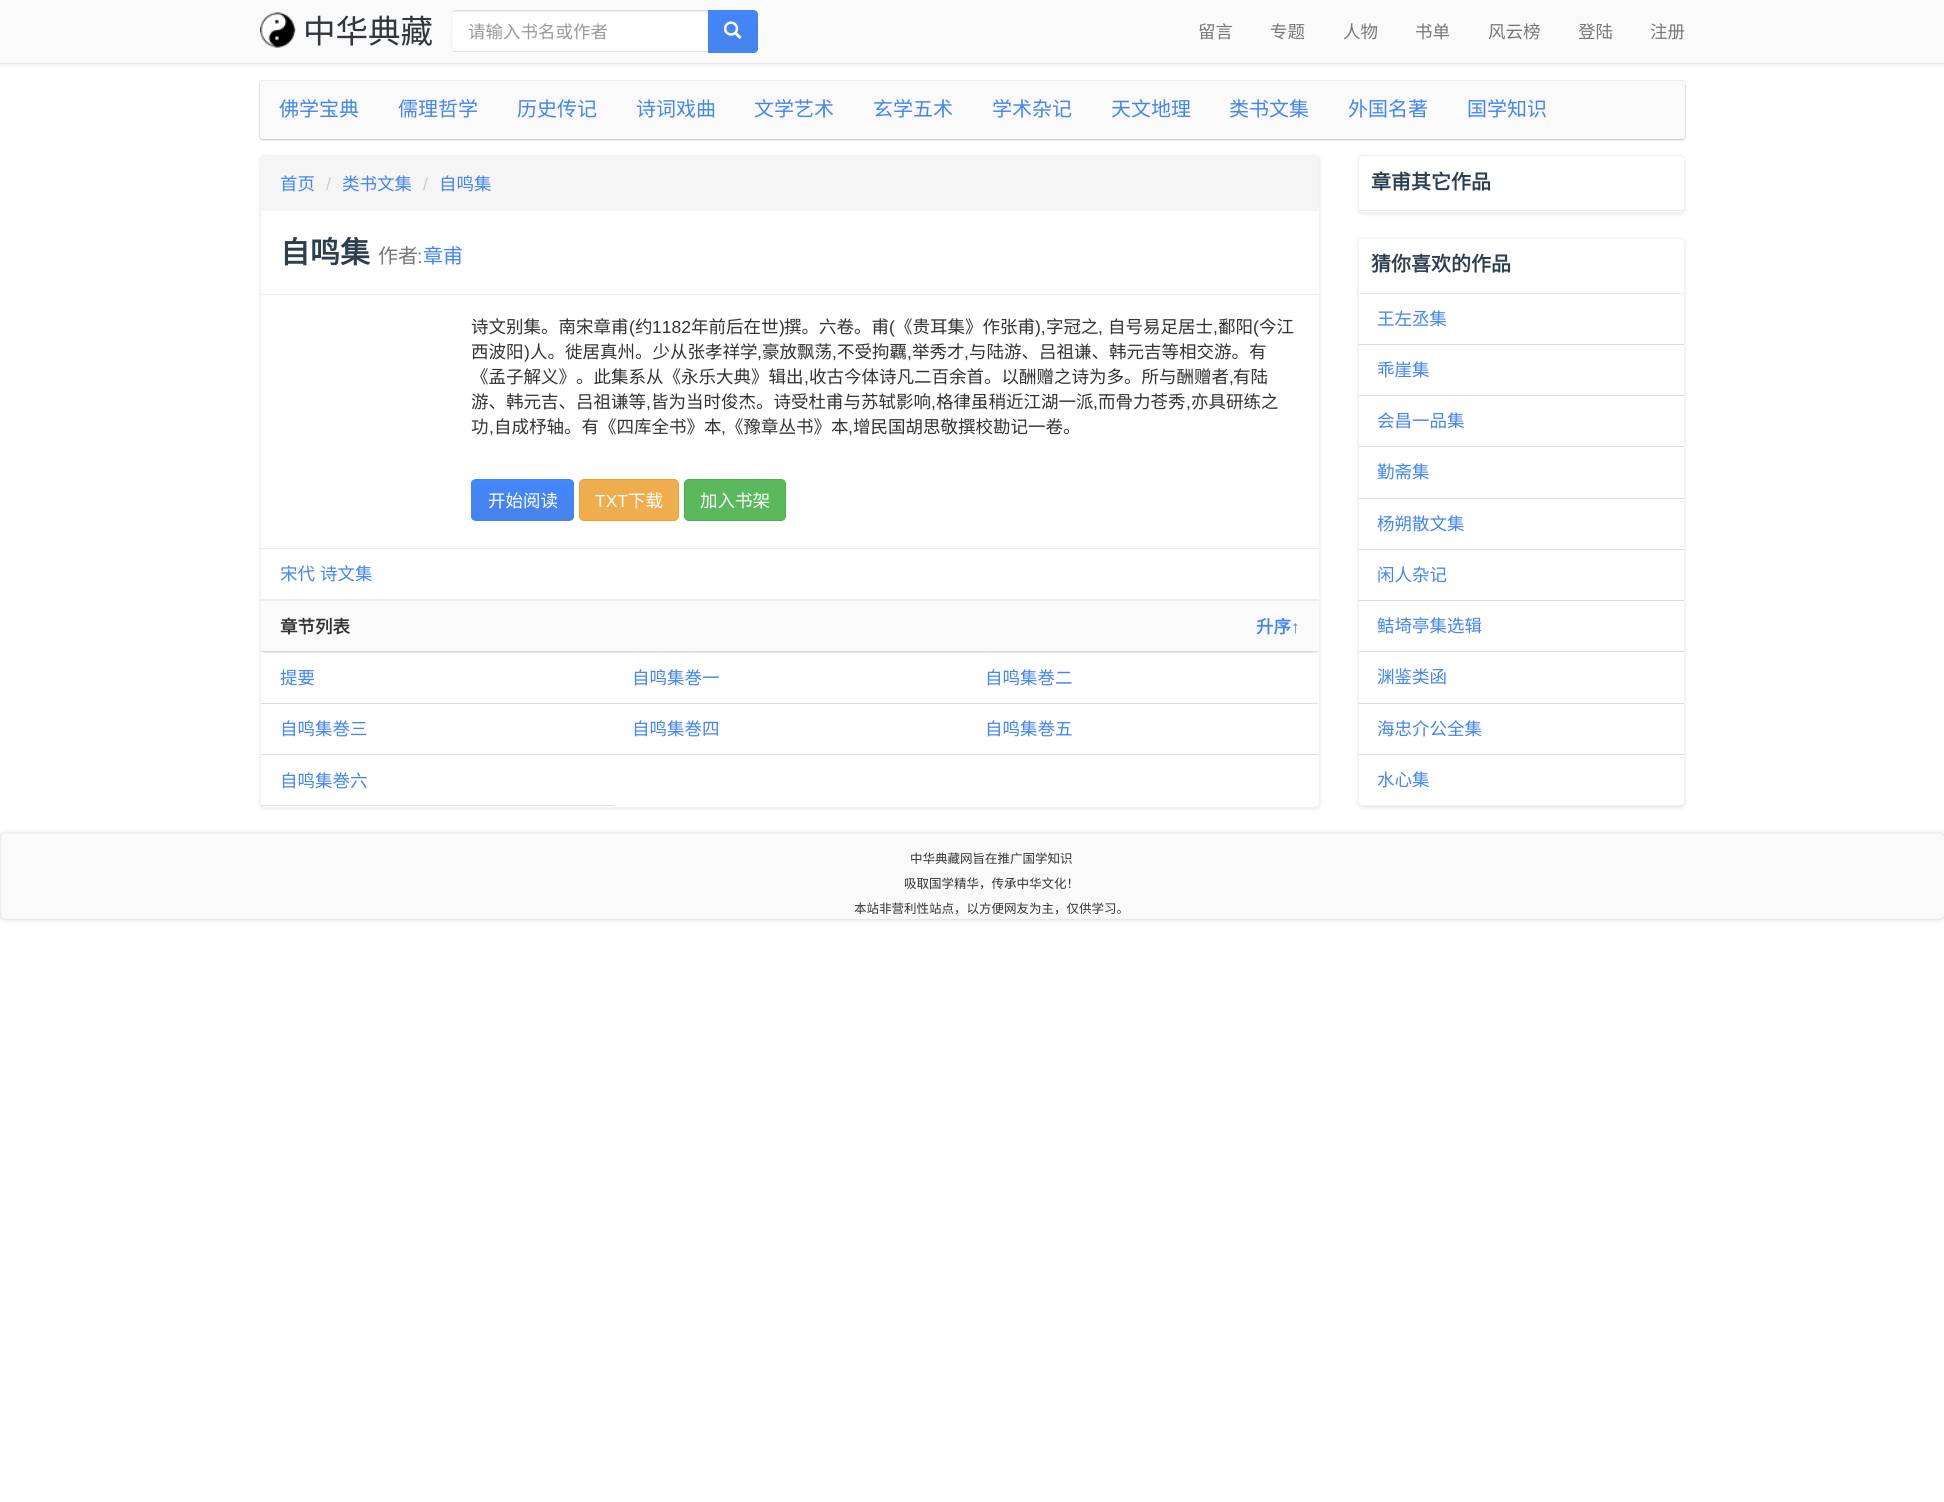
import math
import cairo

surface = cairo.ImageSurface(cairo.FORMAT_RGB24, 1944, 1502)
ctx = cairo.Context(surface)
options = cairo.FontOptions()
options.set_hint_metrics(cairo.HINT_METRICS_OFF)
options.set_hint_style(cairo.HINT_STYLE_NONE)
ctx.set_font_options(options)
ctx.set_miter_limit(4)


def set_color(code):
    ctx.set_source_rgb(*(v / 255 for v in bytes.fromhex(code[-6:])))


def draw_text(x, y, s, family, size, color, bold=False, italic=False):
    ctx.select_font_face(family, cairo.FONT_SLANT_ITALIC if italic else cairo.FONT_SLANT_NORMAL, cairo.FONT_WEIGHT_BOLD if bold else cairo.FONT_WEIGHT_NORMAL)
    ctx.set_font_size(size)
    set_color(color)
    ctx.move_to(x, y)
    ctx.show_text(s)


def fill_rect(x, y, w, h, color):
    set_color(color)
    ctx.rectangle(x, y, w, h)
    ctx.fill()


def rounded_rect(x, y, w, h, r):
    ctx.new_sub_path()
    for i, (u, v) in enumerate([(x + w - r, y + h - r), (x + r, y + h - r), (x + r, y + r), (x + w - r, y + r)]):
        ctx.arc(u, v, r, i * math.pi / 2, (i + 1) * math.pi / 2)
    ctx.close_path()


def draw_shadow(x, y, w, h, r, blur, alpha):
    ctx.push_group_with_content(cairo.CONTENT_ALPHA)
    ctx.set_operator(cairo.OPERATOR_SOURCE)
    for i in range(15, -16, -2):
        e = blur * i / 6
        if min(w, h) + 2 * e > 0:
            ctx.set_source_rgba(0, 0, 0, alpha * math.erfc((i - 1) / 8.5) / 2)
            rounded_rect(x - e, y - e, w + 2 * e, h + 2 * e, max(0, min(r + e + blur * .6, min(w, h) / 2 + e)))
            ctx.fill()
    ctx.mask(ctx.pop_group())


def draw_image(path, x, y, w, h):
    ctx.save()
    ctx.set_source_surface(cairo.ImageSurface.create_from_png(path), x, y)
    ctx.rectangle(x, y, w, h)
    ctx.fill()
    ctx.restore()


set_color("#ffffff")
ctx.paint()
set_color("#000000")
draw_shadow(0, 0, 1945, 64, 0, 3, 0.1)
fill_rect(0, 0, 1944, 63, "#fafafa")
fill_rect(0, 63, 1944, 1, "#e7e7e7")
draw_image("assets/img1.png", 260, 12, 36, 36)
draw_text(303, 43, "中华典藏", "Noto Sans CJK SC", 32.5, "#31363c")
set_color("#ffffff")
ctx.new_path()
ctx.move_to(453.5, 10)
ctx.line_to(709, 10)
ctx.line_to(709, 53)
ctx.line_to(453.5, 53)
ctx.curve_to(452, 53, 451, 52, 451, 50.5)
ctx.line_to(451, 12.5)
ctx.curve_to(451, 11, 452, 10, 453.5, 10)
ctx.close_path()
ctx.fill()
set_color("#ececec")
ctx.new_path()
ctx.move_to(454, 12)
ctx.line_to(709, 12)
ctx.line_to(709, 11)
ctx.line_to(454, 11)
ctx.curve_to(453, 11, 453, 12, 453, 12)
ctx.close_path()
ctx.fill()
set_color("#e0e0e0")
ctx.new_path()
ctx.move_to(454, 10)
ctx.line_to(452, 11)
ctx.line_to(453, 11)
ctx.line_to(454, 11)
ctx.line_to(709, 11)
ctx.line_to(709, 10)
ctx.close_path()
ctx.fill()
ctx.new_path()
ctx.move_to(709, 52)
ctx.line_to(454, 52)
ctx.line_to(452, 52)
ctx.line_to(453, 51)
ctx.line_to(709, 51)
ctx.close_path()
ctx.fill()
ctx.set_source_rgba(0, 0, 0, 0.05)
ctx.new_path()
ctx.move_to(451, 11)
ctx.line_to(452, 11)
ctx.line_to(453, 11)
ctx.curve_to(451, 13, 453, 50, 453, 51)
ctx.line_to(452, 52)
ctx.line_to(451, 51)
ctx.close_path()
ctx.fill()
draw_text(468, 38, "请输入书名或作者", "Noto Sans CJK SC", 17.5, "#999999")
ctx.save()
ctx.new_path()
ctx.move_to(708, 10)
ctx.line_to(753, 10)
ctx.curve_to(756, 10, 758, 12, 758, 15)
ctx.line_to(758, 48)
ctx.curve_to(758, 51, 756, 53, 753, 53)
ctx.line_to(708, 53)
ctx.close_path()
ctx.clip()
gradient = cairo.LinearGradient(733, 11, 733, 51)
gradient.add_color_stop_rgba(0, 0.263, 0.529, 0.992, 1)
gradient.add_color_stop_rgba(1, 0.275, 0.514, 0.918, 1)
ctx.set_source(gradient)
ctx.rectangle(709, 11, 49, 40)
ctx.fill()
gradient = cairo.LinearGradient(733, 51, 733, 91)
gradient.add_color_stop_rgba(0, 0.263, 0.529, 0.992, 1)
gradient.add_color_stop_rgba(1, 0.275, 0.514, 0.918, 1)
ctx.set_source(gradient)
ctx.rectangle(708, 51, 50, 2)
ctx.fill()
ctx.restore()
ctx.new_path()
ctx.move_to(708.5, 10.5)
ctx.line_to(753, 10.5)
ctx.curve_to(755.5, 10.5, 757.5, 12.5, 757.5, 15)
ctx.line_to(757.5, 48)
ctx.curve_to(757.5, 50.5, 755.5, 52.5, 753, 52.5)
ctx.line_to(708.5, 52.5)
ctx.close_path()
set_color("#4285f4")
ctx.set_line_width(1)
ctx.stroke()
draw_image("assets/img2.png", 723, 21, 19, 18)
draw_text(1198, 38, "留言", "Noto Sans CJK SC", 17.5, "#777777")
draw_text(1270, 38, "专题", "Noto Sans CJK SC", 17.5, "#777777")
draw_text(1343, 38, "人物", "Noto Sans CJK SC", 17.5, "#777777")
draw_text(1415, 38, "书单", "Noto Sans CJK SC", 17.5, "#777777")
draw_text(1488, 38, "风云榜", "Noto Sans CJK SC", 17.5, "#777777")
draw_text(1578, 38, "登陆", "Noto Sans CJK SC", 17.5, "#777777")
draw_text(1650, 38, "注册", "Noto Sans CJK SC", 17.5, "#777777")
rounded_rect(259.5, 80.5, 1426, 59, 3.5)
set_color("#ebebeb")
ctx.stroke()
set_color("#000000")
draw_shadow(260, 83, 1425, 57, 2.5, 1, 0.16)
set_color("#fafafa")
rounded_rect(260, 81, 1425, 58, 2.5)
ctx.fill()
draw_text(279, 116, "佛学宝典", "Noto Sans CJK SC", 20, "#4285f4")
draw_text(398, 116, "儒理哲学", "Noto Sans CJK SC", 20, "#4285f4")
draw_text(517, 116, "历史传记", "Noto Sans CJK SC", 20, "#4285f4")
draw_text(636, 116, "诗词戏曲", "Noto Sans CJK SC", 20, "#4285f4")
draw_text(754, 116, "文学艺术", "Noto Sans CJK SC", 20, "#4285f4")
draw_text(873, 116, "玄学五术", "Noto Sans CJK SC", 20, "#4285f4")
draw_text(992, 116, "学术杂记", "Noto Sans CJK SC", 20, "#4285f4")
draw_text(1111, 116, "天文地理", "Noto Sans CJK SC", 20, "#4285f4")
draw_text(1229, 116, "类书文集", "Noto Sans CJK SC", 20, "#4285f4")
draw_text(1348, 116, "外国名著", "Noto Sans CJK SC", 20, "#4285f4")
draw_text(1467, 116, "国学知识", "Noto Sans CJK SC", 20, "#4285f4")
set_color("#000000")
draw_shadow(260, 156, 1060, 653, 5, 2, 0.1)
set_color("#ffffff")
rounded_rect(260.5, 155.5, 1059, 652, 4.5)
ctx.fill_preserve()
set_color("#f2f2f2")
ctx.stroke()
fill_rect(261, 156, 1058, 55, "#f5f5f5")
draw_text(280, 190, "首页", "Noto Sans CJK SC", 17.5, "#4285f4")
draw_text(326, 190, "/", "Liberation Sans", 17.5, "#cccccc")
draw_text(342, 190, "类书文集", "Noto Sans CJK SC", 17.5, "#4285f4")
draw_text(423, 190, "/", "Liberation Sans", 17.5, "#cccccc")
draw_text(439, 190, "自鸣集", "Noto Sans CJK SC", 17.5, "#4285f4")
fill_rect(261, 294, 1058, 1, "#ebebeb")
draw_text(280, 263, "自鸣集", "Noto Sans CJK SC", 30, "#2c3e50", bold=True)
draw_text(378, 263, "作者", "Noto Sans CJK SC", 20, "#777777")
draw_text(417, 263, ":", "Liberation Sans", 20, "#777777")
draw_text(423, 263, "章甫", "Noto Sans CJK SC", 20, "#4285f4")
draw_text(471, 333, "诗文别集。南宋章甫", "Noto Sans CJK SC", 17.5, "#333333")
draw_text(629, 333, "(", "Liberation Sans", 17.5, "#333333")
draw_text(635, 333, "约", "Noto Sans CJK SC", 17.5, "#333333")
draw_text(652, 333, "1182", "Liberation Sans", 17.5, "#333333")
draw_text(691, 333, "年前后在世", "Noto Sans CJK SC", 17.5, "#333333")
draw_text(779, 333, ")", "Liberation Sans", 17.5, "#333333")
draw_text(784, 333, "撰。六卷。甫", "Noto Sans CJK SC", 17.5, "#333333")
draw_text(889, 333, "(", "Liberation Sans", 17.5, "#333333")
draw_text(895, 333, "《贵耳集》作张甫", "Noto Sans CJK SC", 17.5, "#333333")
draw_text(1035, 333, "),", "Liberation Sans", 17.5, "#333333")
draw_text(1046, 333, "字冠之", "Noto Sans CJK SC", 17.5, "#333333")
draw_text(1098, 333, ",", "Liberation Sans", 17.5, "#333333")
draw_text(1108, 333, "自号易足居士", "Noto Sans CJK SC", 17.5, "#333333")
draw_text(1213, 333, ",", "Liberation Sans", 17.5, "#333333")
draw_text(1218, 333, "鄱阳", "Noto Sans CJK SC", 17.5, "#333333")
draw_text(1253, 333, "(", "Liberation Sans", 17.5, "#333333")
draw_text(1259, 333, "今江", "Noto Sans CJK SC", 17.5, "#333333")
draw_text(471, 358, "西波阳", "Noto Sans CJK SC", 17.5, "#333333")
draw_text(524, 358, ")", "Liberation Sans", 17.5, "#333333")
draw_text(530, 358, "人。徙居真州。少从张孝祥学", "Noto Sans CJK SC", 17.5, "#333333")
draw_text(757, 358, ",", "Liberation Sans", 17.5, "#333333")
draw_text(762, 358, "豪放飘荡", "Noto Sans CJK SC", 17.5, "#333333")
draw_text(832, 358, ",", "Liberation Sans", 17.5, "#333333")
draw_text(837, 358, "不受拘覊", "Noto Sans CJK SC", 17.5, "#333333")
draw_text(907, 358, ",", "Liberation Sans", 17.5, "#333333")
draw_text(912, 358, "举秀才", "Noto Sans CJK SC", 17.5, "#333333")
draw_text(964, 358, ",", "Liberation Sans", 17.5, "#333333")
draw_text(969, 358, "与陆游、吕祖谦、韩元吉等相交游。有", "Noto Sans CJK SC", 17.5, "#333333")
draw_text(471, 383, "《孟子解义》。此集系从《永乐大典》辑出", "Noto Sans CJK SC", 17.5, "#333333")
draw_text(804, 383, ",", "Liberation Sans", 17.5, "#333333")
draw_text(809, 383, "收古今体诗凡二百余首。以酬赠之诗为多。所与酬赠者", "Noto Sans CJK SC", 17.5, "#333333")
draw_text(1229, 383, ",", "Liberation Sans", 17.5, "#333333")
draw_text(1233, 383, "有陆", "Noto Sans CJK SC", 17.5, "#333333")
draw_text(471, 408, "游、韩元吉、吕祖谦等", "Noto Sans CJK SC", 17.5, "#333333")
draw_text(646, 408, ",", "Liberation Sans", 17.5, "#333333")
draw_text(651, 408, "皆为当时俊杰。诗受杜甫与苏轼影响", "Noto Sans CJK SC", 17.5, "#333333")
draw_text(931, 408, ",", "Liberation Sans", 17.5, "#333333")
draw_text(936, 408, "格律虽稍近江湖一派", "Noto Sans CJK SC", 17.5, "#333333")
draw_text(1093, 408, ",", "Liberation Sans", 17.5, "#333333")
draw_text(1098, 408, "而骨力苍秀", "Noto Sans CJK SC", 17.5, "#333333")
draw_text(1186, 408, ",", "Liberation Sans", 17.5, "#333333")
draw_text(1191, 408, "亦具研练之", "Noto Sans CJK SC", 17.5, "#333333")
draw_text(471, 433, "功", "Noto Sans CJK SC", 17.5, "#333333")
draw_text(489, 433, ",", "Liberation Sans", 17.5, "#333333")
draw_text(494, 433, "自成杼轴。有《四库全书》本", "Noto Sans CJK SC", 17.5, "#333333")
draw_text(721, 433, ",", "Liberation Sans", 17.5, "#333333")
draw_text(726, 433, "《豫章丛书》本", "Noto Sans CJK SC", 17.5, "#333333")
draw_text(848, 433, ",", "Liberation Sans", 17.5, "#333333")
draw_text(853, 433, "增民国胡思敬撰校勘记一卷。", "Noto Sans CJK SC", 17.5, "#333333")
ctx.save()
rounded_rect(471, 479, 103, 42, 5)
ctx.clip()
gradient = cairo.LinearGradient(523, 480, 523, 520)
gradient.add_color_stop_rgba(0, 0.263, 0.529, 0.992, 1)
gradient.add_color_stop_rgba(1, 0.275, 0.514, 0.918, 1)
ctx.set_source(gradient)
ctx.rectangle(471, 480, 103, 40)
ctx.fill()
ctx.restore()
rounded_rect(471.5, 479.5, 102, 41, 4.5)
set_color("#4285f4")
ctx.stroke()
draw_text(488, 507, "开始阅读", "Noto Sans CJK SC", 17.5, "#ffffff")
set_color("#f0ad4e")
rounded_rect(579.5, 479.5, 99, 41, 4.5)
ctx.fill_preserve()
set_color("#eea236")
ctx.stroke()
draw_text(595, 507, "TXT", "Liberation Sans", 17.5, "#ffffff")
draw_text(628, 507, "下载", "Noto Sans CJK SC", 17.5, "#ffffff")
set_color("#5cb85c")
rounded_rect(684.5, 479.5, 101, 41, 4.5)
ctx.fill_preserve()
set_color("#4cae4c")
ctx.stroke()
draw_text(700, 507, "加入书架", "Noto Sans CJK SC", 17.5, "#ffffff")
fill_rect(261, 548, 1058, 1, "#ebebeb")
fill_rect(261, 599, 1058, 1, "#ebebeb")
draw_text(280, 580, "宋代", "Noto Sans CJK SC", 17.5, "#4285f4")
draw_text(320, 580, "诗文集", "Noto Sans CJK SC", 17.5, "#4285f4")
set_color("#e6e6e6")
ctx.new_path()
ctx.move_to(261, 601)
ctx.line_to(261, 649)
ctx.curve_to(261, 651, 263, 653, 265, 653)
ctx.line_to(1315, 653)
ctx.curve_to(1317, 653, 1319, 651, 1319, 649)
ctx.line_to(1319, 601)
ctx.line_to(1319, 648)
ctx.curve_to(1319, 650, 1317, 651, 1315, 651)
ctx.line_to(265, 651)
ctx.curve_to(263, 651, 261, 650, 261, 648)
ctx.close_path()
ctx.fill()
set_color("#fafafa")
ctx.new_path()
ctx.move_to(261, 600)
ctx.line_to(1319, 600)
ctx.line_to(1319, 647)
ctx.curve_to(1319, 649, 1317, 651, 1315, 651)
ctx.line_to(265, 651)
ctx.curve_to(263, 651, 261, 649, 261, 647)
ctx.close_path()
ctx.fill()
fill_rect(261, 600, 1058, 1, "#ebebeb")
draw_text(280, 633, "章节列表", "Noto Sans CJK SC", 17.5, "#333333", bold=True)
draw_text(1256, 633, "升序", "Noto Sans CJK SC", 17.5, "#4285f4", bold=True)
draw_text(1291, 633, "↑", "Liberation Sans", 17.5, "#4285f4", bold=True)
fill_rect(261, 651, 1057, 1, "#dddddd")
fill_rect(261, 703, 1057, 1, "#dddddd")
draw_text(280, 684, "提要", "Noto Sans CJK SC", 17.5, "#4285f4")
draw_text(632, 684, "自鸣集巻一", "Noto Sans CJK SC", 17.5, "#4285f4")
draw_text(985, 684, "自鸣集巻二", "Noto Sans CJK SC", 17.5, "#4285f4")
fill_rect(261, 754, 1057, 1, "#dddddd")
draw_text(280, 735, "自鸣集巻三", "Noto Sans CJK SC", 17.5, "#4285f4")
draw_text(632, 735, "自鸣集巻四", "Noto Sans CJK SC", 17.5, "#4285f4")
draw_text(985, 735, "自鸣集巻五", "Noto Sans CJK SC", 17.5, "#4285f4")
fill_rect(261, 804, 1, 1, "#ffffff")
fill_rect(261, 805, 353, 1, "#dddddd")
draw_text(280, 787, "自鸣集巻六", "Noto Sans CJK SC", 17.5, "#4285f4")
set_color("#000000")
draw_shadow(1358, 156, 327, 58, 5, 2, 0.1)
set_color("#ffffff")
rounded_rect(1358.5, 155.5, 326, 57, 4.5)
ctx.fill_preserve()
set_color("#f2f2f2")
ctx.stroke()
set_color("#ffffff")
ctx.new_path()
ctx.move_to(1363, 156)
ctx.line_to(1680, 156)
ctx.curve_to(1682, 156, 1684, 158, 1684, 160)
ctx.line_to(1684, 211)
ctx.line_to(1359, 211)
ctx.line_to(1359, 160)
ctx.curve_to(1359, 158, 1361, 156, 1363, 156)
ctx.close_path()
ctx.fill()
fill_rect(1359, 210, 325, 1, "#ebebeb")
draw_text(1371, 189, "章甫其它作品", "Noto Sans CJK SC", 20, "#2c3e50", bold=True)
set_color("#000000")
draw_shadow(1358, 239, 327, 569, 5, 2, 0.1)
set_color("#ffffff")
rounded_rect(1358.5, 238.5, 326, 567, 4.5)
ctx.fill_preserve()
set_color("#f2f2f2")
ctx.stroke()
set_color("#ffffff")
ctx.new_path()
ctx.move_to(1363, 239)
ctx.line_to(1680, 239)
ctx.curve_to(1682, 239, 1684, 241, 1684, 243)
ctx.line_to(1684, 294)
ctx.line_to(1359, 294)
ctx.line_to(1359, 243)
ctx.curve_to(1359, 241, 1361, 239, 1363, 239)
ctx.close_path()
ctx.fill()
fill_rect(1359, 293, 325, 1, "#ebebeb")
draw_text(1371, 271, "猜你喜欢的作品", "Noto Sans CJK SC", 20, "#2c3e50", bold=True)
fill_rect(1359, 344, 325, 1, "#dddddd")
draw_text(1377, 325, "王左丞集", "Noto Sans CJK SC", 17.5, "#4285f4")
fill_rect(1359, 395, 325, 1, "#dddddd")
draw_text(1377, 376, "乖崖集", "Noto Sans CJK SC", 17.5, "#4285f4")
fill_rect(1359, 446, 325, 1, "#dddddd")
draw_text(1377, 427, "会昌一品集", "Noto Sans CJK SC", 17.5, "#4285f4")
fill_rect(1359, 498, 325, 1, "#dddddd")
draw_text(1377, 478, "勤斋集", "Noto Sans CJK SC", 17.5, "#4285f4")
fill_rect(1359, 549, 325, 1, "#dddddd")
draw_text(1377, 530, "杨朔散文集", "Noto Sans CJK SC", 17.5, "#4285f4")
fill_rect(1359, 600, 325, 1, "#dddddd")
draw_text(1377, 581, "闲人杂记", "Noto Sans CJK SC", 17.5, "#4285f4")
fill_rect(1359, 651, 325, 1, "#dddddd")
draw_text(1377, 632, "鲒埼亭集选辑", "Noto Sans CJK SC", 17.5, "#4285f4")
fill_rect(1359, 703, 325, 1, "#dddddd")
draw_text(1377, 683, "渊鉴类函", "Noto Sans CJK SC", 17.5, "#4285f4")
draw_text(1377, 735, "海忠介公全集", "Noto Sans CJK SC", 17.5, "#4285f4")
set_color("#ffffff")
ctx.new_path()
ctx.move_to(1359, 754)
ctx.line_to(1684, 754)
ctx.line_to(1684, 801)
ctx.curve_to(1684, 803, 1682, 805, 1680, 805)
ctx.line_to(1363, 805)
ctx.curve_to(1361, 805, 1359, 803, 1359, 801)
ctx.close_path()
ctx.fill()
fill_rect(1359, 754, 325, 1, "#dddddd")
draw_text(1377, 786, "水心集", "Noto Sans CJK SC", 17.5, "#4285f4")
set_color("#000000")
draw_shadow(0, 833, 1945, 87, 5, 3, 0.1)
set_color("#fafafa")
rounded_rect(0, 833, 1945, 87, 5)
ctx.fill()
ctx.new_path()
ctx.move_to(1943, 918)
ctx.line_to(1940, 919.5)
ctx.line_to(5, 919.5)
ctx.line_to(2, 918)
set_color("#e7e7e7")
ctx.set_line_width(1.2)
ctx.stroke()
ctx.new_path()
ctx.move_to(2, 918)
ctx.curve_to(1, 917.5, 0.5, 916, 0.5, 915)
ctx.line_to(0.5, 837.5)
ctx.curve_to(0.5, 836.5, 1, 835, 2, 834.5)
ctx.curve_to(2.5, 833.5, 4, 833, 5, 833)
ctx.line_to(1940, 833)
ctx.curve_to(1941, 833, 1942.5, 833.5, 1943, 834.5)
ctx.curve_to(1944, 835, 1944.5, 836.5, 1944.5, 837.5)
ctx.line_to(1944.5, 915)
ctx.curve_to(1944.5, 916, 1944, 917.5, 1943, 918)
set_color("#ebebeb")
ctx.stroke()
draw_text(910, 863, "中华典藏网旨在推广国学知识", "Noto Sans CJK SC", 12.5, "#333333")
draw_text(904, 888, "吸取国学精华，传承中华文化！", "Noto Sans CJK SC", 12.5, "#333333")
draw_text(854, 913, "本站非营利性站点，以方便网友为主，仅供学习。", "Noto Sans CJK SC", 12.5, "#333333")
surface.write_to_png("output.png")
